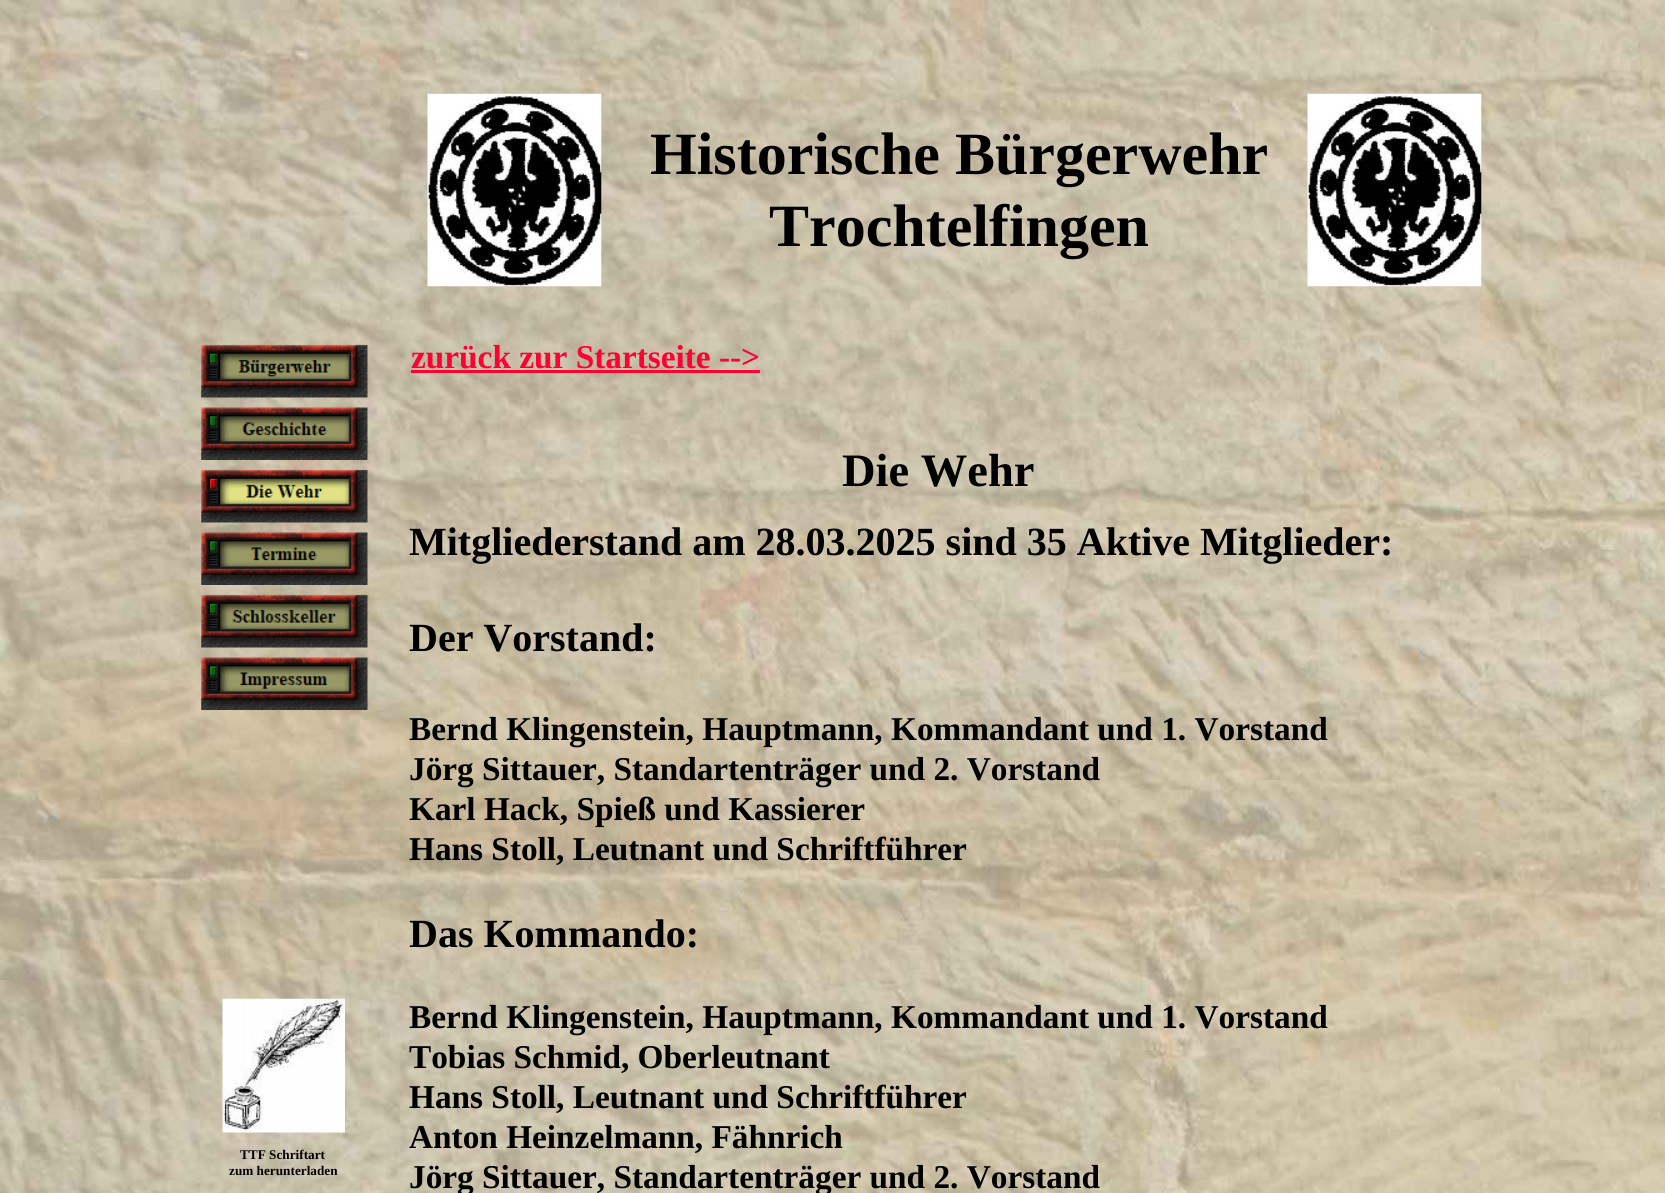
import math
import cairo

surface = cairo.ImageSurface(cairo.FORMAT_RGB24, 1665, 1193)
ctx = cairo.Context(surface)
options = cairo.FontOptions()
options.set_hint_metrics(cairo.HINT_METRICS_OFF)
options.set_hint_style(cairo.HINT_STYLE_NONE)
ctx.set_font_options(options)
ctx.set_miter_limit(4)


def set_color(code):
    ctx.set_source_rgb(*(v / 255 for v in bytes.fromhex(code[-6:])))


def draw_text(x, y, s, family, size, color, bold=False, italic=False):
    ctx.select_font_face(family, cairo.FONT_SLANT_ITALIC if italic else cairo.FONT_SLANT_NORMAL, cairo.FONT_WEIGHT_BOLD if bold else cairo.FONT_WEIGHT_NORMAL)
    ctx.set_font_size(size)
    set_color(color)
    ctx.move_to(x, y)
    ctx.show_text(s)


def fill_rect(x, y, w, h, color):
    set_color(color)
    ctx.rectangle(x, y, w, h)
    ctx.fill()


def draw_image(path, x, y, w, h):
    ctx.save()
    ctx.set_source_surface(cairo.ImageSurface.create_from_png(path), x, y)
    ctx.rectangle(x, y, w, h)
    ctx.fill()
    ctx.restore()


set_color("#ffffff")
ctx.paint()
draw_image("assets/img1.png", 0, 0, 1665, 1193)
draw_image("assets/img2.png", 201, 344, 167, 54)
draw_image("assets/img3.png", 201, 407, 167, 53)
draw_image("assets/img4.png", 201, 469, 167, 54)
draw_image("assets/img5.png", 201, 532, 167, 53)
draw_image("assets/img6.png", 201, 594, 167, 54)
draw_image("assets/img7.png", 201, 657, 167, 53)
draw_image("assets/img8.png", 222, 998, 123, 135)
draw_text(240, 1159, "TTF Schriftart", "Liberation Serif", 13.25, "#000000", bold=True)
draw_text(229, 1175, "zum herunterladen", "Liberation Serif", 13.25, "#000000", bold=True)
draw_image("assets/img9.png", 427, 93, 175, 194)
draw_text(650, 174, "Historische Bürgerwehr", "Liberation Serif", 60, "#000000", bold=True)
draw_text(769, 246, "Trochtelfingen", "Liberation Serif", 60, "#000000", bold=True)
draw_text(411, 368, "zurück zur Startseite -->", "Liberation Serif", 33.3, "#ff0033", bold=True)
fill_rect(411, 370, 349, 3, "#ff0033")
draw_image("assets/img10.png", 1307, 93, 175, 194)
draw_text(842, 486, "Die Wehr", "Liberation Serif", 46.5, "#000000", bold=True)
draw_text(409, 555, "Mitgliederstand am 28.03.2025 sind 35 Aktive Mitglieder:", "Liberation Serif", 40, "#000000", bold=True)
draw_text(409, 651, "Der Vorstand:", "Liberation Serif", 40, "#000000", bold=True)
draw_text(409, 740, "Bernd Klingenstein, Hauptmann, Kommandant und 1. Vorstand", "Liberation Serif", 33.3, "#000000", bold=True)
draw_text(409, 780, "Jörg Sittauer, Standartenträger und 2. Vorstand", "Liberation Serif", 33.3, "#000000", bold=True)
draw_text(409, 820, "Karl Hack, Spieß und Kassierer", "Liberation Serif", 33.3, "#000000", bold=True)
draw_text(409, 860, "Hans Stoll, Leutnant und Schriftführer", "Liberation Serif", 33.3, "#000000", bold=True)
draw_text(409, 947, "Das Kommando:", "Liberation Serif", 40, "#000000", bold=True)
draw_text(409, 1028, "Bernd Klingenstein, Hauptmann, Kommandant und 1. Vorstand", "Liberation Serif", 33.3, "#000000", bold=True)
draw_text(409, 1068, "Tobias Schmid, Oberleutnant", "Liberation Serif", 33.3, "#000000", bold=True)
draw_text(409, 1108, "Hans Stoll, Leutnant und Schriftführer", "Liberation Serif", 33.3, "#000000", bold=True)
draw_text(409, 1148, "Anton Heinzelmann, Fähnrich", "Liberation Serif", 33.3, "#000000", bold=True)
draw_text(409, 1188, "Jörg Sittauer, Standartenträger und 2. Vorstand", "Liberation Serif", 33.3, "#000000", bold=True)
surface.write_to_png("output.png")
